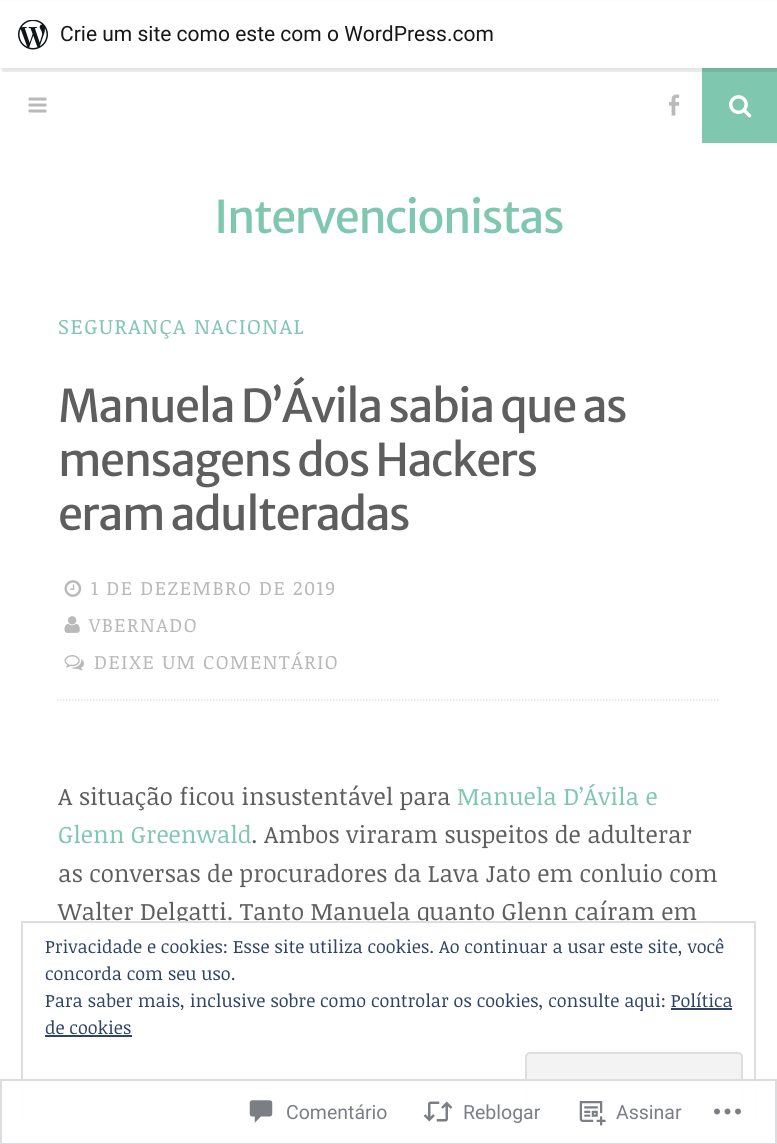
import math
import cairo

surface = cairo.ImageSurface(cairo.FORMAT_RGB24, 777, 1144)
ctx = cairo.Context(surface)
options = cairo.FontOptions()
options.set_hint_metrics(cairo.HINT_METRICS_OFF)
options.set_hint_style(cairo.HINT_STYLE_NONE)
ctx.set_font_options(options)
ctx.set_miter_limit(4)


def set_color(code):
    ctx.set_source_rgb(*(v / 255 for v in bytes.fromhex(code[-6:])))


def draw_text(x, y, s, family, size, color, bold=False, italic=False):
    ctx.select_font_face(family, cairo.FONT_SLANT_ITALIC if italic else cairo.FONT_SLANT_NORMAL, cairo.FONT_WEIGHT_BOLD if bold else cairo.FONT_WEIGHT_NORMAL)
    ctx.set_font_size(size)
    set_color(color)
    ctx.move_to(x, y)
    ctx.show_text(s)


def draw_spaced(x, y, s, letter, word):
    ctx.move_to(x, y)
    for ch in s:
        ctx.show_text(ch)
        ctx.rel_move_to(letter + word * (ch == ' '), 0)


def fill_rect(x, y, w, h, color):
    set_color(color)
    ctx.rectangle(x, y, w, h)
    ctx.fill()


def rounded_rect(x, y, w, h, r):
    ctx.new_sub_path()
    for i, (u, v) in enumerate([(x + w - r, y + h - r), (x + r, y + h - r), (x + r, y + r), (x + w - r, y + r)]):
        ctx.arc(u, v, r, i * math.pi / 2, (i + 1) * math.pi / 2)
    ctx.close_path()


def draw_shadow(x, y, w, h, r, blur, alpha):
    ctx.push_group_with_content(cairo.CONTENT_ALPHA)
    ctx.set_operator(cairo.OPERATOR_SOURCE)
    for i in range(15, -16, -2):
        e = blur * i / 6
        if min(w, h) + 2 * e > 0:
            ctx.set_source_rgba(0, 0, 0, alpha * math.erfc((i - 1) / 8.5) / 2)
            rounded_rect(x - e, y - e, w + 2 * e, h + 2 * e, max(0, min(r + e + blur * .6, min(w, h) / 2 + e)))
            ctx.fill()
    ctx.mask(ctx.pop_group())


def draw_image(path, x, y, w, h):
    ctx.save()
    ctx.set_source_surface(cairo.ImageSurface.create_from_png(path), x, y)
    ctx.rectangle(x, y, w, h)
    ctx.fill()
    ctx.restore()


set_color("#ffffff")
ctx.paint()
fill_rect(702, 68, 75, 75, "#7fc7af")
set_color("#000000")
draw_shadow(0, 2, 777, 67, 0, 1.5, 0.05)
ctx.set_source_rgba(0, 0, 0, 0.08)
ctx.new_path()
ctx.move_to(2, 68)
ctx.line_to(2, 72)
ctx.line_to(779, 72)
ctx.line_to(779, 5)
ctx.line_to(777, 5)
ctx.line_to(777, 68)
ctx.close_path()
ctx.fill()
fill_rect(0, 1, 777, 67, "#ffffff")
draw_image("assets/img1.png", 18, 20, 30, 30)
draw_text(60, 41, "Crie um site como este com o WordPress.com", "Roboto", 21, "#171717")
draw_image("assets/img2.png", 28, 97, 19, 16)
draw_image("assets/img3.png", 669, 94, 11, 22)
draw_image("assets/img4.png", 729, 95, 23, 23)
ctx.select_font_face("Merriweather Sans")
ctx.set_font_size(45)
set_color("#7fc7af")
draw_spaced(214, 233, "Intervencionistas", -1.5, 0)
ctx.select_font_face("Noticia Text")
ctx.set_font_size(21)
draw_spaced(58, 334, "SEGURANÇA NACIONAL", 1.5, 0)
ctx.select_font_face("Merriweather Sans")
ctx.set_font_size(45)
set_color("#5e5e5e")
draw_spaced(58, 422, "Manuela D’Ávila sabia que as", -1.5, 0)
draw_spaced(58, 476, "mensagens dos Hackers", -1.5, 0)
draw_spaced(58, 530, "eram adulteradas", -1.5, 0)
ctx.new_path()
ctx.move_to(57, 700)
ctx.line_to(720, 700)
set_color("#e6e6e6")
ctx.set_line_width(1.5)
ctx.set_dash([1.5, 1.5])
ctx.stroke()
draw_image("assets/img5.png", 64, 580, 18, 17)
ctx.select_font_face("Noticia Text")
ctx.set_font_size(19.5)
set_color("#b9b9b9")
draw_spaced(91, 595, "1 DE DEZEMBRO DE 2019", 1.5, 0)
draw_image("assets/img6.png", 64, 616, 16, 17)
draw_spaced(89, 632, "VBERNADO", 1.5, 0)
draw_image("assets/img7.png", 64, 655, 20, 16)
draw_spaced(94, 669, "DEIXE UM COMENTÁRIO", 1.5, 0)
draw_text(58, 805, "A situação ficou insustentável para", "Noticia Text", 24, "#5e5e5e")
draw_text(457, 805, "Manuela D’Ávila e", "Noticia Text", 24, "#7fc7af")
draw_text(58, 843, "Glenn Greenwald", "Noticia Text", 24, "#7fc7af")
draw_text(251, 843, ". Ambos viraram suspeitos de adulterar", "Noticia Text", 24, "#5e5e5e")
draw_text(58, 882, "as conversas de procuradores da Lava Jato em conluio com", "Noticia Text", 24, "#5e5e5e")
draw_text(58, 920, "Walter Delgatti. Tanto Manuela quanto Glenn caíram em", "Noticia Text", 24, "#5e5e5e")
fill_rect(176, 923, 252, 3, "#ffffff")
ctx.rectangle(22, 922, 733, 201)
set_color("#dedede")
ctx.set_line_width(2)
ctx.set_dash([])
ctx.stroke()
draw_text(45, 953, "Privacidade e cookies: Esse site utiliza cookies. Ao continuar a usar este site, você", "Noticia Text", 18, "#2e4467")
draw_text(45, 980, "concorda com seu uso.", "Noticia Text", 18, "#2e4467")
draw_text(45, 1007, "Para saber mais, inclusive sobre como controlar os cookies, consulte aqui: Política", "Noticia Text", 18, "#2e4467")
draw_text(45, 1034, "de cookies", "Noticia Text", 18, "#2e4467")
fill_rect(671, 1008, 61, 2, "#2e4467")
fill_rect(45, 1035, 87, 2, "#2e4467")
set_color("#f3f3f3")
rounded_rect(526, 1053, 216, 56, 4)
ctx.fill_preserve()
set_color("#dedede")
ctx.stroke()
ctx.set_source_rgba(1, 1, 1, 0.98)
ctx.rectangle(21, 1079, 735, 45)
ctx.fill()
ctx.rectangle(1, 1080, 775, 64)
ctx.set_source_rgba(0.863, 0.863, 0.871, 0.98)
ctx.stroke()
draw_image("assets/img8.png", 249, 1100, 24, 23)
draw_text(286, 1119, "Comentário", "Roboto", 19.5, "#7b7f85")
draw_image("assets/img9.png", 423, 1101, 30, 21)
draw_text(463, 1119, "Reblogar", "Roboto", 19.5, "#7b7f85")
draw_image("assets/img10.png", 579, 1101, 27, 25)
draw_text(616, 1119, "Assinar", "Roboto", 19.5, "#7b7f85")
draw_image("assets/img11.png", 714, 1108, 27, 7)
surface.write_to_png("output.png")
